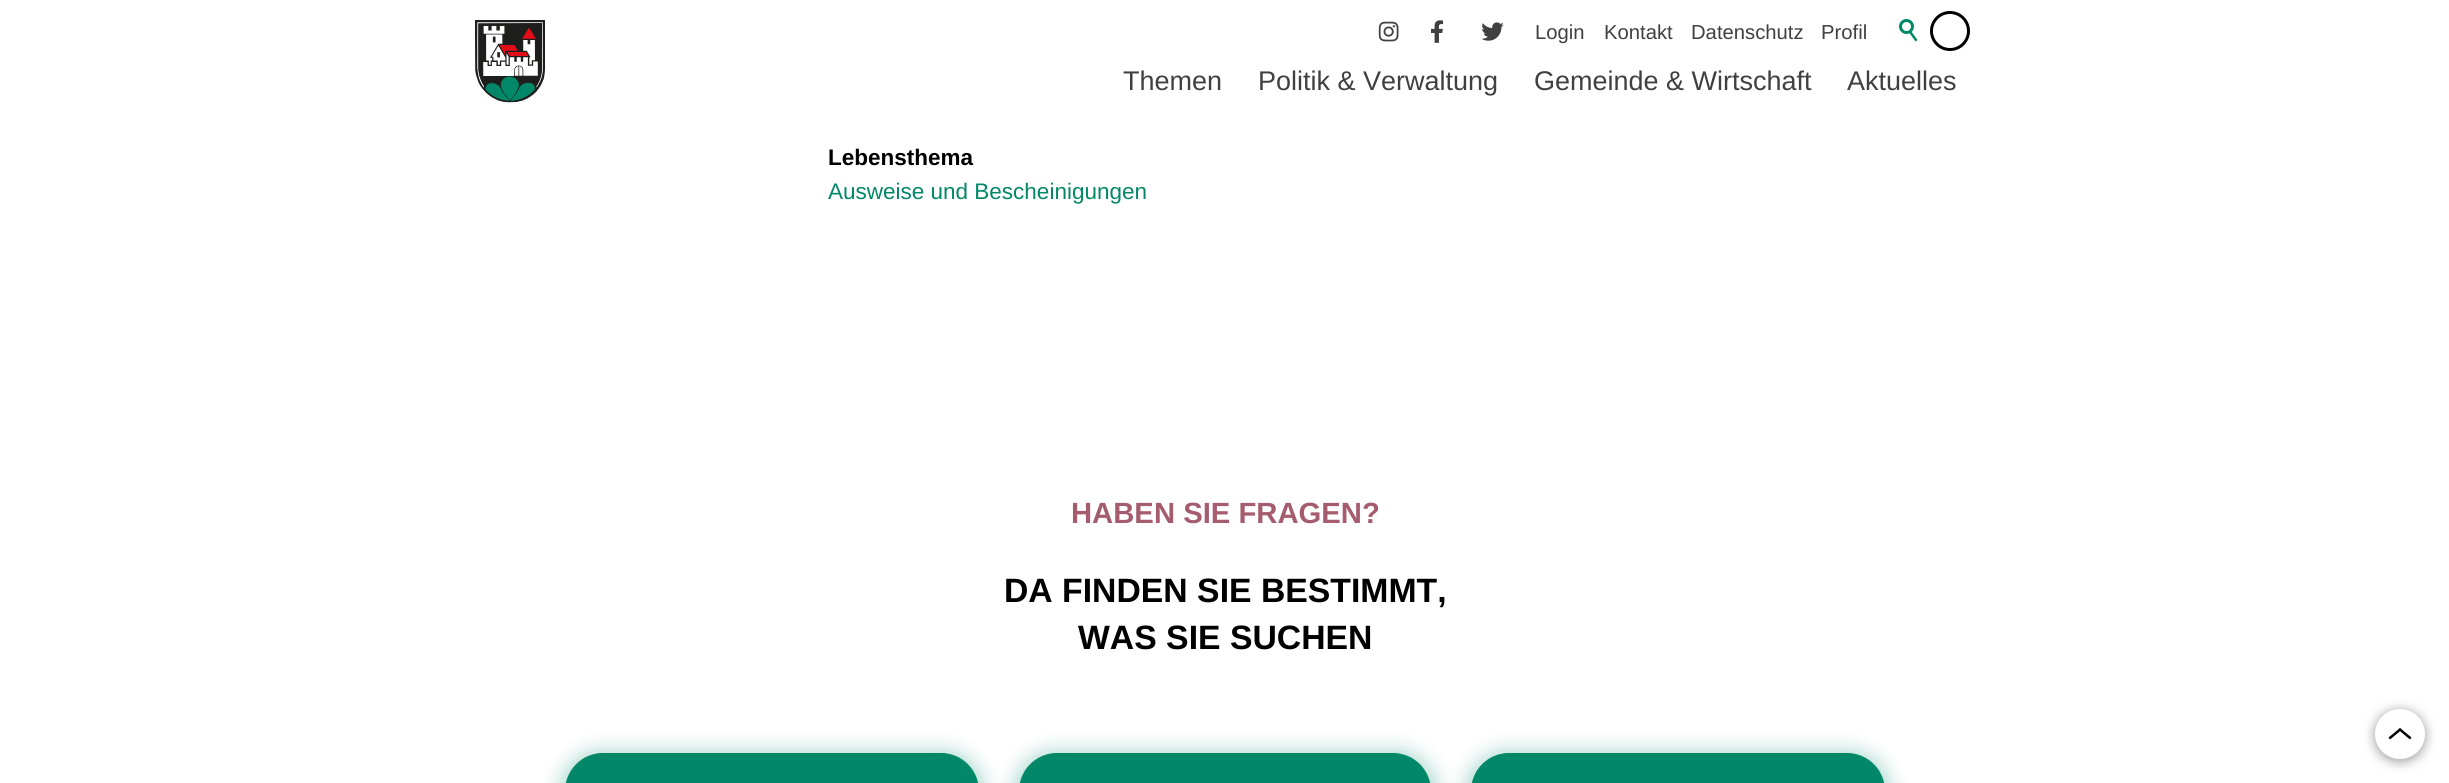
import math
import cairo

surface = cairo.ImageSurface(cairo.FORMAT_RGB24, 2449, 783)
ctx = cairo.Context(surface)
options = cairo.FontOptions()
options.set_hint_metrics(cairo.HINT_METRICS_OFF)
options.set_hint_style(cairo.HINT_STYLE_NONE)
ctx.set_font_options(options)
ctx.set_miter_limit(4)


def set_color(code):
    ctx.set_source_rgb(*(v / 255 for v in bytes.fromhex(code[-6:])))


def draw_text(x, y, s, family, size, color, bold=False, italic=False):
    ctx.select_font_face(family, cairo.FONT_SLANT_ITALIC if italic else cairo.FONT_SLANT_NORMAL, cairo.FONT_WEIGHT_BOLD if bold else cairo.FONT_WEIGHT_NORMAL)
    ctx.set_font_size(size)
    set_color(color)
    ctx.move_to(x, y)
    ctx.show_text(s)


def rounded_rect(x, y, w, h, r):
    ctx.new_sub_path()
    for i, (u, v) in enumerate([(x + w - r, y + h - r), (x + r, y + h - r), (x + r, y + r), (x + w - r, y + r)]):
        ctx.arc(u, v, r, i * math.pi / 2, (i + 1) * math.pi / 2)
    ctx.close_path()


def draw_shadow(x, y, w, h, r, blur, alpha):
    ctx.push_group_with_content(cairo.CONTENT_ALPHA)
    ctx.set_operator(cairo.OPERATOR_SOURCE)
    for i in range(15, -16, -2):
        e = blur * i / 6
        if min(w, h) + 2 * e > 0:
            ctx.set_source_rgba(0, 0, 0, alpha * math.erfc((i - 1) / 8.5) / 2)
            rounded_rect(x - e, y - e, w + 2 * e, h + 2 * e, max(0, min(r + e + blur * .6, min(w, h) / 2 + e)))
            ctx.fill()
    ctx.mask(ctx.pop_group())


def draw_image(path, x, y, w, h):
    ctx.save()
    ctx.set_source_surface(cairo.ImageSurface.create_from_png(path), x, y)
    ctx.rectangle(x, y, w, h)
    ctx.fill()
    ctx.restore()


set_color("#ffffff")
ctx.paint()
draw_image("assets/img1.png", 1378, 21, 21, 21)
draw_image("assets/img2.png", 1431, 20, 13, 23)
draw_image("assets/img3.png", 1481, 22, 23, 19)
draw_text(1535, 39, "Login", "Liberation Sans", 20.25, "#404040")
draw_text(1604, 39, "Kontakt", "Liberation Sans", 20.25, "#404040")
draw_text(1691, 39, "Datenschutz", "Liberation Sans", 20.25, "#404040")
draw_text(1821, 39, "Profil", "Liberation Sans", 20.25, "#404040")
ctx.new_path()
ctx.arc(1906.5, 26.5, 6, 0, 2 * math.pi)
set_color("#028868")
ctx.set_line_width(3)
ctx.stroke()
ctx.new_path()
ctx.move_to(1911, 31)
ctx.line_to(1917.5, 40)
ctx.line_to(1915.5, 41.5)
ctx.line_to(1909, 32.5)
ctx.close_path()
ctx.fill()
ctx.arc(1950, 31, 18.5, 0, 2 * math.pi)
set_color("#000000")
ctx.stroke()
draw_image("assets/img4.png", 475, 20, 70, 83)
draw_text(1123, 90, "Themen", "Liberation Sans", 27, "#404040")
draw_text(1258, 90, "Politik & Verwaltung", "Liberation Sans", 27, "#404040")
draw_text(1534, 90, "Gemeinde & Wirtschaft", "Liberation Sans", 27, "#404040")
draw_text(1847, 90, "Aktuelles", "Liberation Sans", 27, "#404040")
draw_text(828, 165, "Lebensthema", "Liberation Sans", 22.5, "#000000", bold=True)
draw_text(828, 199, "Ausweise und Bescheinigungen", "Liberation Sans", 22.5, "#028868")
draw_text(1071, 523, "HABEN SIE FRAGEN?", "Liberation Sans", 29.25, "#a55c6e", bold=True)
draw_text(1004, 602, "DA FINDEN SIE BESTIMMT,", "Liberation Sans", 33.75, "#000000", bold=True)
draw_text(1078, 649, "WAS SIE SUCHEN", "Liberation Sans", 33.75, "#000000", bold=True)
set_color("#028868")
draw_shadow(559, 750, 426, 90, 44, 9.5, 0.3)
set_color("#028868")
rounded_rect(565.5, 753.5, 413, 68, 37.5)
ctx.fill_preserve()
ctx.set_line_width(1)
ctx.stroke()
set_color("#028868")
draw_shadow(1013, 750, 425, 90, 44, 9.5, 0.3)
set_color("#028868")
rounded_rect(1019.5, 753.5, 411, 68, 37.5)
ctx.fill_preserve()
ctx.stroke()
set_color("#028868")
draw_shadow(1465, 750, 426, 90, 44, 9.5, 0.3)
set_color("#028868")
rounded_rect(1471.5, 753.5, 413, 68, 37.5)
ctx.fill_preserve()
ctx.stroke()
set_color("#000000")
draw_shadow(2375, 711, 50, 50, 25, 6, 0.4)
set_color("#ffffff")
ctx.arc(2400, 734, 25, 0, 2 * math.pi)
ctx.fill()
set_color("#000000")
ctx.new_path()
ctx.move_to(2388.5, 737.5)
ctx.line_to(2400, 728)
ctx.line_to(2401.5, 730)
ctx.line_to(2390, 739.5)
ctx.close_path()
ctx.fill()
ctx.new_path()
ctx.move_to(2400, 728)
ctx.line_to(2411.5, 737.5)
ctx.line_to(2410, 739.5)
ctx.line_to(2398.5, 730)
ctx.close_path()
ctx.fill()
surface.write_to_png("output.png")
